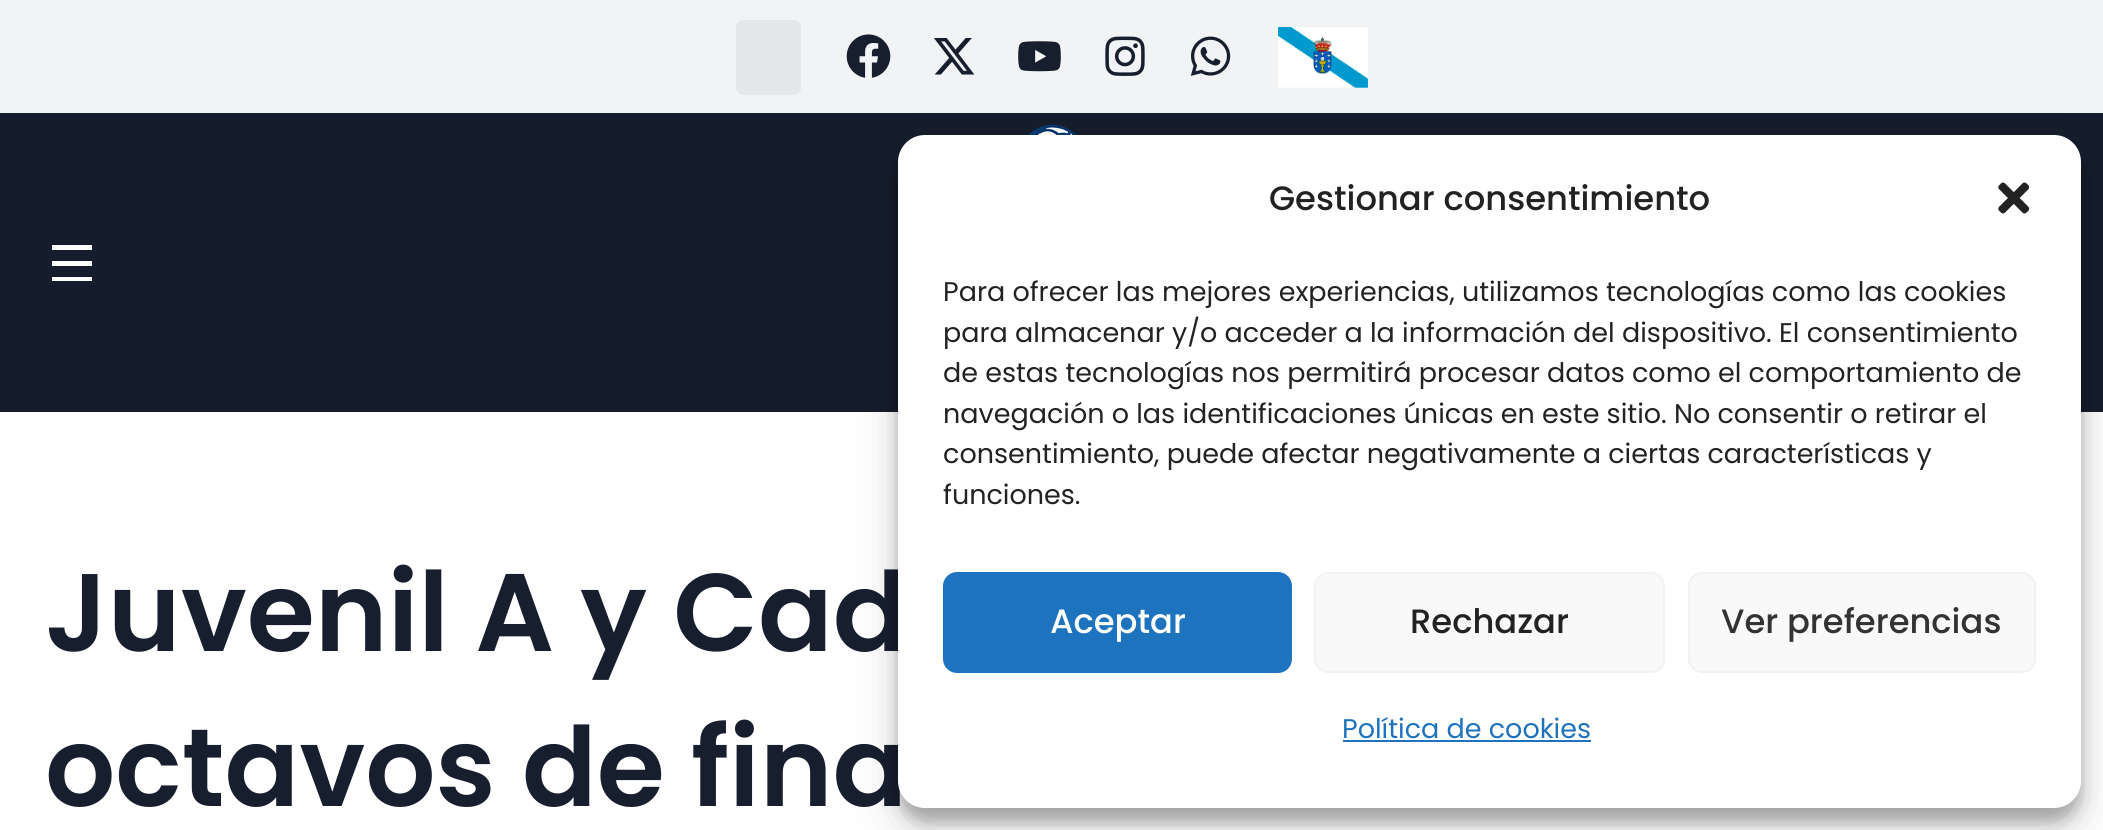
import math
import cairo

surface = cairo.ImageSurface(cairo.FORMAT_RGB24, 2103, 830)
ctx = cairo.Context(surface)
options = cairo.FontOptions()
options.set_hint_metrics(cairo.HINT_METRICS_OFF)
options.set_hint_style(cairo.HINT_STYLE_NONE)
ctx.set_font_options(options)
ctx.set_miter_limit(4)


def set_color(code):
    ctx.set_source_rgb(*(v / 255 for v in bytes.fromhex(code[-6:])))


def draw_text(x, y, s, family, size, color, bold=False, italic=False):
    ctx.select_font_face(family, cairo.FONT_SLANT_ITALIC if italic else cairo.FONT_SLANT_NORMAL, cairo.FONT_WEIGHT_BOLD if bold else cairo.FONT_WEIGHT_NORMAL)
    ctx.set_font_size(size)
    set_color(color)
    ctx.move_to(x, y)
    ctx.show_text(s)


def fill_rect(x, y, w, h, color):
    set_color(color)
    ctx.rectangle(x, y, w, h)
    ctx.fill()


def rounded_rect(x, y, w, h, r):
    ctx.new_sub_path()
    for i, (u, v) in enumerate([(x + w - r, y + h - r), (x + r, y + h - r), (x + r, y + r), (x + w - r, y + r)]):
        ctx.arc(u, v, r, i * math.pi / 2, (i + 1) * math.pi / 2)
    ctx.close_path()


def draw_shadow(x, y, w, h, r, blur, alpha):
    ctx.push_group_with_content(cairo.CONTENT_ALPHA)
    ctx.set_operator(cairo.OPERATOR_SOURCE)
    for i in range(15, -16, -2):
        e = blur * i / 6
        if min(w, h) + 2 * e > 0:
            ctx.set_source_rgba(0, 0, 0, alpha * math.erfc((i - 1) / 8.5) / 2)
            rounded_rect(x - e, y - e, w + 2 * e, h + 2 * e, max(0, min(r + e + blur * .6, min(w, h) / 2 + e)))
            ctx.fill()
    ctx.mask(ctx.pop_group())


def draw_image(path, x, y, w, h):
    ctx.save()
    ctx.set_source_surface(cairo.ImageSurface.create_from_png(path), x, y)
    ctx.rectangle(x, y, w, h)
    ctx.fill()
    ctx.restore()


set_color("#ffffff")
ctx.paint()
fill_rect(0, 0, 2103, 113, "#f2f3f5")
set_color("#e6e7e9")
rounded_rect(736, 20, 65, 75, 7)
ctx.fill()
draw_image("assets/img1.png", 846, 34, 45, 44)
draw_image("assets/img2.png", 934, 38, 41, 37)
draw_image("assets/img3.png", 1018, 41, 43, 31)
draw_image("assets/img4.png", 1105, 36, 40, 40)
draw_image("assets/img5.png", 1190, 36, 41, 40)
draw_image("assets/img6.png", 1278, 27, 90, 61)
fill_rect(0, 113, 2103, 299, "#151c2b")
draw_image("assets/img7.png", 1028, 124, 49, 11)
set_color("#ffffff")
ctx.new_path()
ctx.move_to(52, 245)
ctx.line_to(92, 245)
ctx.line_to(92, 250)
ctx.line_to(52, 250)
ctx.close_path()
ctx.move_to(52, 261)
ctx.line_to(92, 261)
ctx.line_to(92, 266)
ctx.line_to(52, 266)
ctx.close_path()
ctx.move_to(52, 277)
ctx.line_to(92, 277)
ctx.line_to(92, 281)
ctx.line_to(52, 281)
ctx.close_path()
ctx.fill()
draw_text(45, 651, "Juvenil A y Cad", "Poppins SemiBold", 110.25, "#171e2e")
draw_text(45, 806, "octavos de fina", "Poppins SemiBold", 110.25, "#171e2e")
set_color("#000000")
draw_shadow(898, 149, 1183, 672, 27, 7, 0.23)
draw_shadow(898, 158, 1183, 672, 27, 22.5, 0.19)
set_color("#ffffff")
rounded_rect(898, 135, 1183, 673, 27)
ctx.fill()
draw_text(1269, 210, "Gestionar consentimiento", "Poppins Medium", 33.75, "#222222")
draw_image("assets/img8.png", 1998, 182, 32, 32)
draw_text(943, 301, "Para ofrecer las mejores experiencias, utilizamos tecnologías como las cookies", "Poppins", 27, "#222222")
draw_text(943, 342, "para almacenar y/o acceder a la información del dispositivo. El consentimiento", "Poppins", 27, "#222222")
draw_text(943, 382, "de estas tecnologías nos permitirá procesar datos como el comportamiento de", "Poppins", 27, "#222222")
draw_text(943, 423, "navegación o las identificaciones únicas en este sitio. No consentir o retirar el", "Poppins", 27, "#222222")
draw_text(943, 463, "consentimiento, puede afectar negativamente a ciertas características y", "Poppins", 27, "#222222")
draw_text(943, 504, "funciones.", "Poppins", 27, "#222222")
set_color("#1e73be")
rounded_rect(944, 573, 347, 99, 13)
ctx.fill_preserve()
ctx.stroke()
draw_text(1050, 633, "Aceptar", "Poppins Medium", 33.75, "#ffffff")
set_color("#f9f9f9")
rounded_rect(1315, 573, 349, 99, 13)
ctx.fill_preserve()
set_color("#f2f2f2")
ctx.stroke()
draw_text(1410, 633, "Rechazar", "Poppins Medium", 33.75, "#222222")
set_color("#f9f9f9")
rounded_rect(1689, 573, 346, 99, 13)
ctx.fill_preserve()
set_color("#f2f2f2")
ctx.stroke()
draw_text(1721, 633, "Ver preferencias", "Poppins Medium", 33.75, "#333333")
draw_text(1342, 738, "Política de cookies", "Poppins", 27, "#1e73be")
fill_rect(1343, 740, 248, 2, "#1e73be")
surface.write_to_png("output.png")
